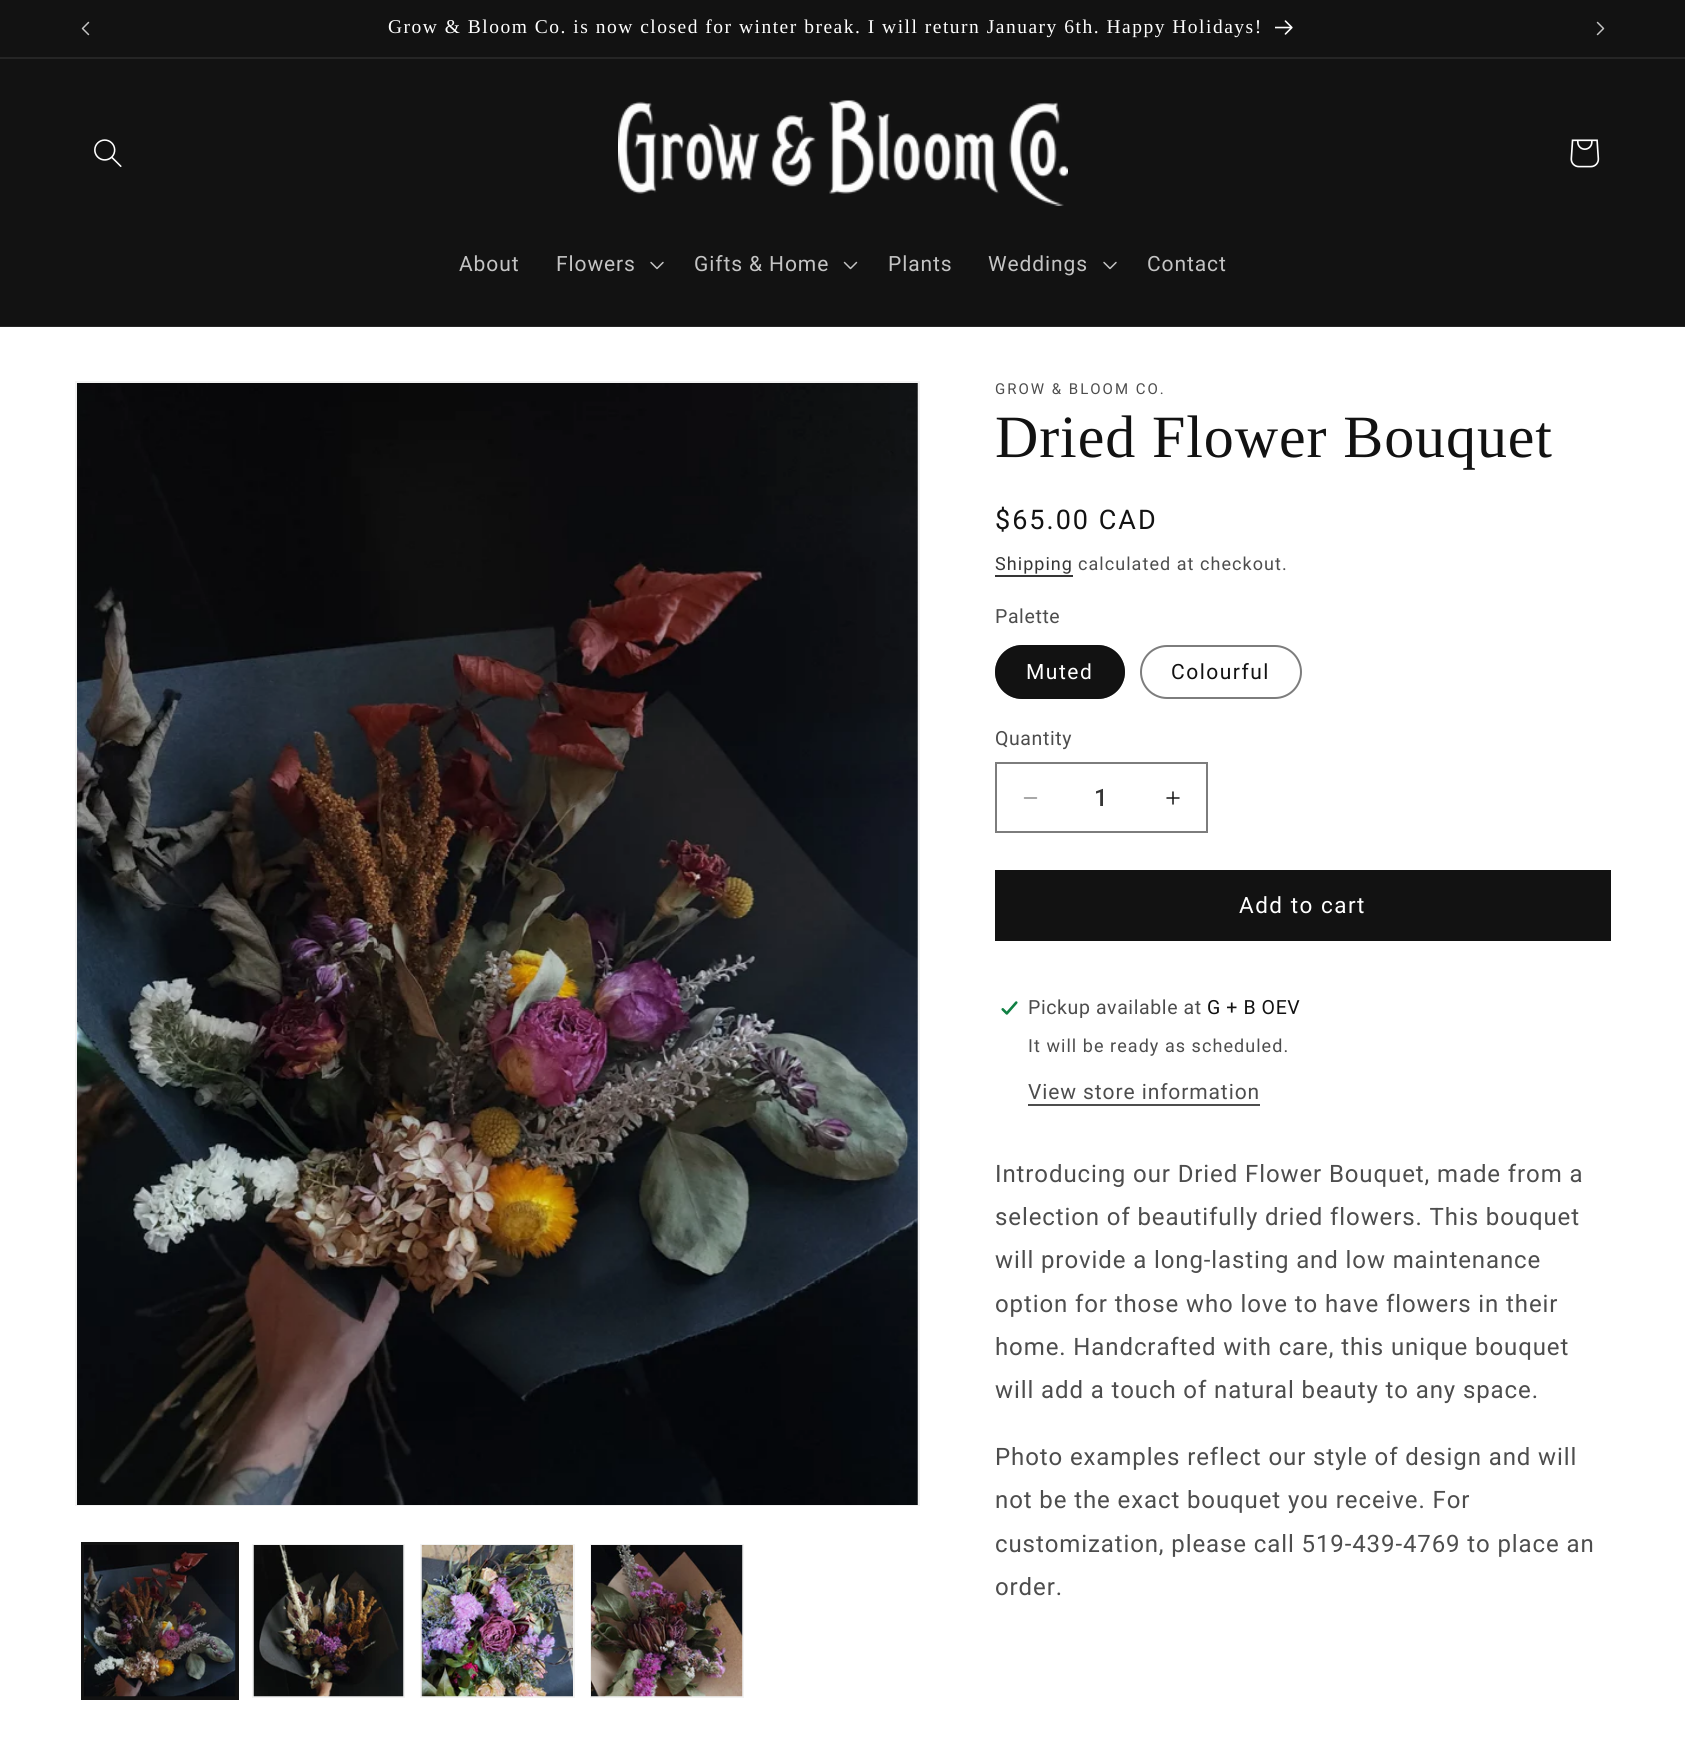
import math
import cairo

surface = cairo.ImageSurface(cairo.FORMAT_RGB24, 1685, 1754)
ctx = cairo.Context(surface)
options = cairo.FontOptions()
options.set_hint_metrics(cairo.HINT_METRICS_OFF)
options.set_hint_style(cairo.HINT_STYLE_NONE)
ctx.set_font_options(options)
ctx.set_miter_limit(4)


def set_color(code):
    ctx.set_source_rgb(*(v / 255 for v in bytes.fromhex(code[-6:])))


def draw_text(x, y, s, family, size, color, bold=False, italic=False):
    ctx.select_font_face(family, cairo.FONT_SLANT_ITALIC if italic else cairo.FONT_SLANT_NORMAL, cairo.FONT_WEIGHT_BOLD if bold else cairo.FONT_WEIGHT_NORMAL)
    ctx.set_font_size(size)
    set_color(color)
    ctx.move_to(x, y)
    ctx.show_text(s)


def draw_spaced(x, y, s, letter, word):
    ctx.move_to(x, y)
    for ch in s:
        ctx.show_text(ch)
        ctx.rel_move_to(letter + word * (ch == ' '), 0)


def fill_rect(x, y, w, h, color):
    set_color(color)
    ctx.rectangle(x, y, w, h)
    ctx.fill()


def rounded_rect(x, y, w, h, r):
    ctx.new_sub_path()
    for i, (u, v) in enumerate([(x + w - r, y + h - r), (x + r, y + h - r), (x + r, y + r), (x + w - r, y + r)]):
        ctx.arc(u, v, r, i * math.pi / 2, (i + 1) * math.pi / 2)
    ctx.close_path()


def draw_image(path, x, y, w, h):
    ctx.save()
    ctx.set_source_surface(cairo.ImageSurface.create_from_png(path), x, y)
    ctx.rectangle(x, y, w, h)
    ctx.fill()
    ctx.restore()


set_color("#ffffff")
ctx.paint()
fill_rect(0, 0, 1685, 57, "#121212")
fill_rect(0, 57, 1685, 2, "#252525")
draw_image("assets/img1.png", 81, 21, 9, 15)
ctx.select_font_face("Liberation Serif")
ctx.set_font_size(19.5)
set_color("#ffffff")
draw_spaced(388, 33, "Grow & Bloom Co. is now closed for winter break. I will return January 6th. Happy Holidays!", 1.5, 0)
draw_image("assets/img2.png", 1275, 20, 18, 15)
draw_image("assets/img3.png", 1596, 21, 9, 15)
fill_rect(0, 59, 1685, 267, "#121212")
fill_rect(0, 326, 1685, 1, "#252525")
draw_image("assets/img4.png", 94, 139, 28, 28)
draw_image("assets/img5.png", 618, 100, 450, 106)
draw_image("assets/img6.png", 1570, 139, 30, 29)
ctx.select_font_face("Roboto")
ctx.set_font_size(21)
set_color("#c4c4c4")
draw_spaced(459, 271, "About", 0.9, 0)
draw_spaced(556, 271, "Flowers", 0.9, 0)
draw_image("assets/img7.png", 650, 261, 14, 9)
draw_spaced(694, 271, "Gifts & Home", 0.9, 0)
draw_image("assets/img8.png", 843, 261, 15, 9)
draw_spaced(888, 271, "Plants", 0.9, 0)
draw_spaced(988, 271, "Weddings", 0.9, 0)
draw_image("assets/img7.png", 1103, 261, 14, 9)
draw_spaced(1147, 271, "Contact", 0.9, 0)
ctx.rectangle(76, 382, 843, 1123)
set_color("#f3f3f3")
ctx.stroke()
draw_image("assets/img9.png", 77, 383, 841, 1122)
ctx.rectangle(82, 1543, 156, 156)
set_color("#121212")
ctx.stroke()
ctx.rectangle(84, 1545, 152, 152)
ctx.stroke()
draw_image("assets/img10.png", 84, 1545, 152, 152)
ctx.rectangle(253, 1545, 151, 152)
set_color("#f3f3f3")
ctx.stroke()
draw_image("assets/img11.png", 253, 1545, 151, 152)
ctx.rectangle(421, 1545, 153, 152)
ctx.stroke()
draw_image("assets/img12.png", 421, 1545, 152, 152)
ctx.rectangle(591, 1545, 152, 152)
ctx.stroke()
draw_image("assets/img13.png", 591, 1545, 152, 152)
ctx.set_font_size(15)
set_color("#4d4d4d")
draw_spaced(995, 394, "GROW & BLOOM CO.", 2, 0)
ctx.select_font_face("Liberation Serif")
ctx.set_font_size(60)
set_color("#121212")
draw_spaced(995, 457, "Dried Flower Bouquet", 0.9, 0)
ctx.select_font_face("Roboto")
ctx.set_font_size(27)
draw_spaced(995, 529, "$65.00 CAD", 2, 0)
ctx.set_font_size(18)
set_color("#363636")
draw_spaced(995, 570, "Shipping", 1.05, 0)
fill_rect(995, 575, 78, 2, "#363636")
set_color("#4d4d4d")
draw_spaced(1078, 570, "calculated at checkout.", 1.05, 0)
ctx.set_font_size(19.5)
draw_spaced(995, 623, "Palette", 0.6, 0)
set_color("#121212")
rounded_rect(995, 645, 130, 54, 27)
ctx.fill()
rounded_rect(996, 646, 128, 52, 26)
ctx.set_source_rgba(0.071, 0.071, 0.071, 0.55)
ctx.stroke()
ctx.set_font_size(21)
set_color("#ffffff")
draw_spaced(1026, 679, "Muted", 1.5, 0)
rounded_rect(1141, 646, 160, 52, 26)
set_color("#7d7d7d")
ctx.stroke()
set_color("#121212")
draw_spaced(1171, 679, "Colourful", 1.5, 0)
ctx.set_font_size(19.5)
set_color("#4d4d4d")
draw_spaced(995, 745, "Quantity", 0.6, 0)
draw_image("assets/img14.png", 1023, 797, 15, 2)
draw_image("assets/img15.png", 1166, 791, 14, 14)
ctx.rectangle(996, 763, 211, 69)
set_color("#7d7d7d")
ctx.stroke()
draw_text(1094, 806, "1", "Roboto Medium", 24, "#363636")
fill_rect(995, 870, 616, 71, "#121212")
ctx.select_font_face("Roboto")
ctx.set_font_size(22.5)
set_color("#ffffff")
draw_spaced(1239, 913, "Add to cart", 1.5, 0)
draw_image("assets/img16.png", 1000, 1001, 18, 14)
ctx.set_font_size(19.5)
set_color("#4d4d4d")
draw_spaced(1028, 1014, "Pickup available at", 0.6, 0)
set_color("#121212")
draw_spaced(1207, 1014, "G + B OEV", 0.6, 0)
ctx.set_font_size(18)
set_color("#4d4d4d")
draw_spaced(1028, 1052, "It will be ready as scheduled.", 1.05, 0)
ctx.set_font_size(21)
draw_spaced(1028, 1099, "View store information", 0.9, 0)
fill_rect(1028, 1104, 232, 2, "#4d4d4d")
ctx.set_font_size(24)
draw_spaced(995, 1182, "Introducing our Dried Flower Bouquet, made from a", 0.9, 0)
draw_spaced(995, 1225, "selection of beautifully dried flowers. This bouquet", 0.9, 0)
draw_spaced(995, 1268, "will provide a long-lasting and low maintenance", 0.9, 0)
draw_spaced(995, 1312, "option for those who love to have flowers in their", 0.9, 0)
draw_spaced(995, 1355, "home. Handcrafted with care, this unique bouquet", 0.9, 0)
draw_spaced(995, 1398, "will add a touch of natural beauty to any space.", 0.9, 0)
draw_spaced(995, 1465, "Photo examples reflect our style of design and will", 0.9, 0)
draw_spaced(995, 1508, "not be the exact bouquet you receive. For", 0.9, 0)
draw_spaced(995, 1552, "customization, please call 519-439-4769 to place an", 0.9, 0)
draw_spaced(995, 1595, "order.", 0.9, 0)
surface.write_to_png("output.png")
